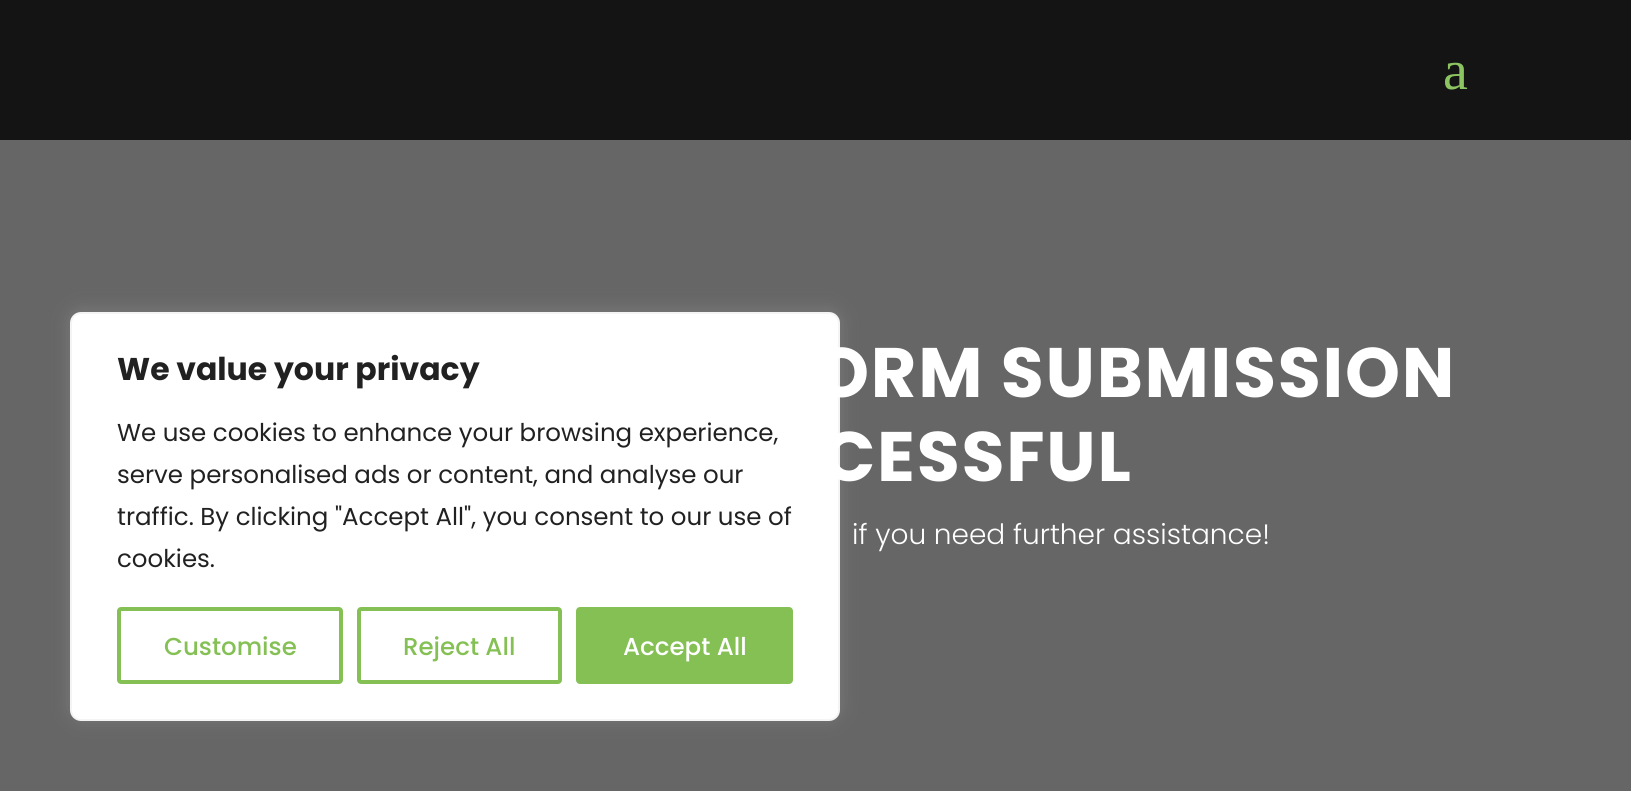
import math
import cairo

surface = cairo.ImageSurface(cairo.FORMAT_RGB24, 1631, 791)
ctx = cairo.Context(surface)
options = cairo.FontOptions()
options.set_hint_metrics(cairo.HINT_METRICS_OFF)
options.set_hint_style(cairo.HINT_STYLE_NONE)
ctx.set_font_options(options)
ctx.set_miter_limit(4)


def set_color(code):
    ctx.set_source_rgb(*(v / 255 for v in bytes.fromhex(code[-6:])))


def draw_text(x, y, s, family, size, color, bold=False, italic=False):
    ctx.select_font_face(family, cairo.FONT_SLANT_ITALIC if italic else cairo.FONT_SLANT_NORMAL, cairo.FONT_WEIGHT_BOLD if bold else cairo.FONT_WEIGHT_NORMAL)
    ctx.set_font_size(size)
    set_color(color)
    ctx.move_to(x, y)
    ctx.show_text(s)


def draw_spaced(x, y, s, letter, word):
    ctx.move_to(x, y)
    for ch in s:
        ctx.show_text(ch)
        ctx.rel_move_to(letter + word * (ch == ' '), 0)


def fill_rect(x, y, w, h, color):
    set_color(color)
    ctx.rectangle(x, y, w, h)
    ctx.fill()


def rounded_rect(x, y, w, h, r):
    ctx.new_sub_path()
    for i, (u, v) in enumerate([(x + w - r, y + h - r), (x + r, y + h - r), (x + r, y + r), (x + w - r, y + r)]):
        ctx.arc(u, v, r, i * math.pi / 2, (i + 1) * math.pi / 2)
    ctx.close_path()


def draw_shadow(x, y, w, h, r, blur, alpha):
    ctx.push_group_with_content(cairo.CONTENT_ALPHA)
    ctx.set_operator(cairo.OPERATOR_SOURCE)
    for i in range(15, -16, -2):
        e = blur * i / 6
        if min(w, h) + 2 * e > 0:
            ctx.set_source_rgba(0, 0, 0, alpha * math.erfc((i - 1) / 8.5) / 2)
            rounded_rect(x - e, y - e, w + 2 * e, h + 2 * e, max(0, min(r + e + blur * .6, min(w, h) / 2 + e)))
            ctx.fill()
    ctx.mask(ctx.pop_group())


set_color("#666666")
ctx.paint()
set_color("#acabab")
draw_shadow(70, 310, 770, 409, 11, 9, 0.3)
set_color("#ffffff")
rounded_rect(71, 313, 768, 407, 10)
ctx.fill_preserve()
set_color("#f4f4f4")
ctx.stroke()
draw_text(117, 380, "We value your privacy", "Poppins", 31.5, "#212121", bold=True)
draw_text(117, 441, "We use cookies to enhance your browsing experience,", "Poppins", 24.5, "#212121")
draw_text(117, 483, "serve personalised ads or content, and analyse our", "Poppins", 24.5, "#212121")
draw_text(117, 525, "traffic. By clicking \"Accept All\", you consent to our use of", "Poppins", 24.5, "#212121")
draw_text(117, 567, "cookies.", "Poppins", 24.5, "#212121")
rounded_rect(119, 609, 222, 73, 2)
set_color("#85c055")
ctx.set_line_width(4)
ctx.stroke()
draw_text(164, 655, "Customise", "Poppins Medium", 24.5, "#85c055")
rounded_rect(359, 609, 201, 73, 2)
ctx.stroke()
draw_text(403, 655, "Reject All", "Poppins Medium", 24.5, "#85c055")
rounded_rect(578, 609, 213, 73, 2)
ctx.fill_preserve()
ctx.stroke()
draw_text(623, 655, "Accept All", "Poppins Medium", 24.5, "#ffffff")
fill_rect(0, 0, 1631, 140, "#141414")
draw_text(1443, 89, "a", "Liberation Serif", 56, "#8cc461")
ctx.select_font_face("Poppins", cairo.FONT_SLANT_NORMAL, cairo.FONT_WEIGHT_BOLD)
ctx.set_font_size(70)
set_color("#ffffff")
draw_spaced(814, 397, "ORM SUBMISSION", 1.75, 0)
draw_spaced(822, 481, "CESSFUL", 1.75, 0)
draw_text(852, 544, "if you need further assistance!", "Poppins Light", 28, "#ffffff")
surface.write_to_png("output.png")
